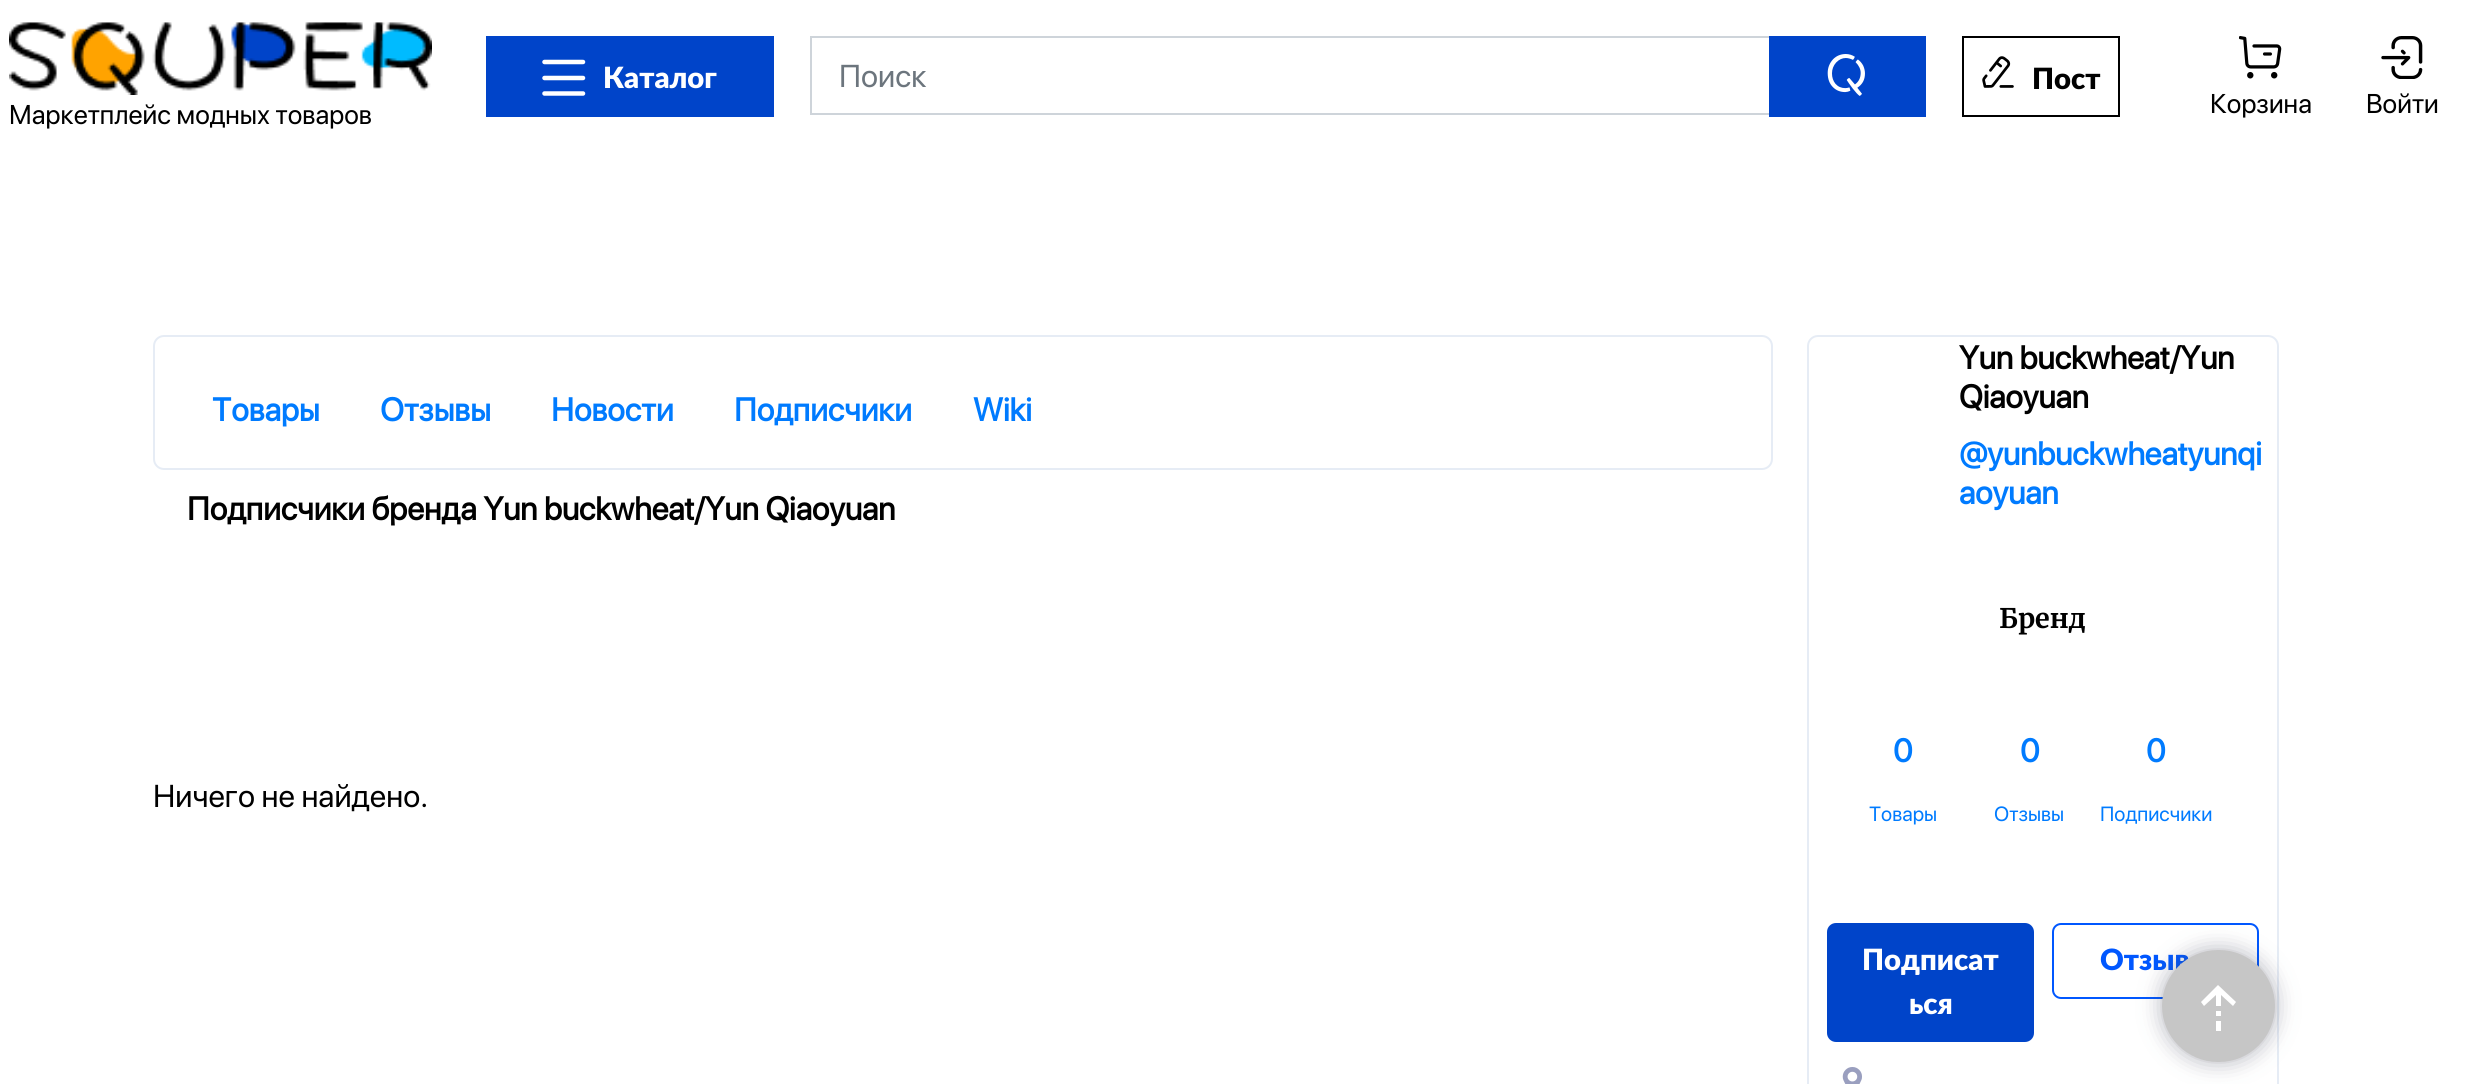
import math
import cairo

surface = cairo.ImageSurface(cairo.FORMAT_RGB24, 2465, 1084)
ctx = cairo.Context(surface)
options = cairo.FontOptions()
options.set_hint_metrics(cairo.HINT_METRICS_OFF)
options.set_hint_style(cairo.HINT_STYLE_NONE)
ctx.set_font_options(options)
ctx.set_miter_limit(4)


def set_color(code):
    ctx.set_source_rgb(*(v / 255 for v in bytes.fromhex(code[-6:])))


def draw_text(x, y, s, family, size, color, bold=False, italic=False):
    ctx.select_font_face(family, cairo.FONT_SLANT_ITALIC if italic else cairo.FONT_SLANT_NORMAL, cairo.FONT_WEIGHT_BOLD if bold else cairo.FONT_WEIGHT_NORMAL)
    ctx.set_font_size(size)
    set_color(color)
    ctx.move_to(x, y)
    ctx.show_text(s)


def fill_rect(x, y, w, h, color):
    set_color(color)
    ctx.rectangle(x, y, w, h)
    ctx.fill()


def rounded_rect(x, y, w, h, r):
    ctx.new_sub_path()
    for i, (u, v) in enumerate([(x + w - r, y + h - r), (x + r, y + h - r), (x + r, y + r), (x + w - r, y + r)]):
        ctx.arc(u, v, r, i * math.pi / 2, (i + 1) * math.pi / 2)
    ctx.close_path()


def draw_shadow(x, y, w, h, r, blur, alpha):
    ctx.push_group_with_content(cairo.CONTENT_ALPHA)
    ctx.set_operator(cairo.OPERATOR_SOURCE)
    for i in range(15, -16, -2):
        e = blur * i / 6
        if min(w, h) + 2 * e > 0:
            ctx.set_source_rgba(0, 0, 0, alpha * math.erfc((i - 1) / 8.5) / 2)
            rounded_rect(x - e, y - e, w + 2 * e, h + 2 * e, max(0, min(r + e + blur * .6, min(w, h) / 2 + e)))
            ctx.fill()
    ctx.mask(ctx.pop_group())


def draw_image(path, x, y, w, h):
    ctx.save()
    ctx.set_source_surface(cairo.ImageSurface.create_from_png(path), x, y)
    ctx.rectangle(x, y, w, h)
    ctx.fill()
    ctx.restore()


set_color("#ffffff")
ctx.paint()
draw_image("assets/img1.png", 9, 22, 423, 73)
draw_text(9, 124, "Маркетплейс модных товаров", "SF Pro Display", 27, "#000000")
fill_rect(486, 36, 288, 81, "#0044c9")
ctx.new_path()
ctx.move_to(544.5, 62)
ctx.line_to(583, 62)
ctx.move_to(544.5, 93.5)
ctx.line_to(583, 93.5)
ctx.move_to(544.5, 78)
ctx.line_to(583, 78)
set_color("#ffffff")
ctx.set_line_width(4.5)
ctx.set_line_cap(cairo.LINE_CAP_ROUND)
ctx.set_line_join(cairo.LINE_JOIN_ROUND)
ctx.stroke()
draw_text(603, 88, "Каталог", "Lato Black", 29.25, "#ffffff")
ctx.rectangle(811, 37, 959, 77)
set_color("#ced4da")
ctx.set_line_width(2)
ctx.set_line_cap(cairo.LINE_CAP_BUTT)
ctx.set_line_join(cairo.LINE_JOIN_MITER)
ctx.stroke()
draw_text(839, 87, "Поиск", "SF Pro Display", 31.5, "#6c757d")
fill_rect(1769, 36, 157, 81, "#0044c9")
draw_image("assets/img2.png", 1827, 54, 38, 42)
ctx.rectangle(1963, 37, 156, 79)
set_color("#000000")
ctx.stroke()
draw_image("assets/img3.png", 1982, 56, 32, 32)
draw_text(2032, 89, "Пост", "Lato Black", 29.25, "#000000")
draw_image("assets/img4.png", 2239, 36, 43, 43)
draw_text(2210, 113, "Корзина", "SF Pro Display", 27, "#000000")
draw_image("assets/img5.png", 2381, 36, 42, 43)
draw_text(2366, 113, "Войти", "SF Pro Display", 27, "#000000")
rounded_rect(154, 336, 1618, 133, 10)
set_color("#e6ecf5")
ctx.stroke()
draw_text(212, 421, "Товары", "SF Pro Display", 32.4, "#007bff", bold=True)
draw_text(380, 421, "Отзывы", "SF Pro Display", 32.4, "#007bff", bold=True)
draw_text(551, 421, "Новости", "SF Pro Display", 32.4, "#007bff", bold=True)
draw_text(734, 421, "Подписчики", "SF Pro Display", 32.4, "#007bff", bold=True)
draw_text(973, 421, "Wiki", "SF Pro Display", 32.4, "#007bff", bold=True)
draw_text(187, 520, "Подписчики бренда Yun buckwheat/Yun Qiaoyuan", "SF Pro Display", 32.4, "#000000", bold=True)
draw_text(153, 807, "Ничего не найдено.", "SF Pro Display", 31.5, "#000000")
rounded_rect(1808, 336, 470, 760, 10)
set_color("#e6ecf5")
ctx.stroke()
draw_text(1959, 369, "Yun buckwheat/Yun", "SF Pro Display", 32.4, "#000000", bold=True)
draw_text(1959, 408, "Qiaoyuan", "SF Pro Display", 32.4, "#000000", bold=True)
draw_text(1959, 465, "@yunbuckwheatyunqi", "SF Pro Display", 32.4, "#007bff", bold=True)
draw_text(1959, 504, "aoyuan", "SF Pro Display", 32.4, "#007bff", bold=True)
draw_text(1999, 628, "Бренд", "Merriweather", 27, "#000000", bold=True)
draw_text(1893, 762, "0", "SF Pro Display", 32.4, "#007bff", bold=True)
draw_text(1869, 821, "Товары", "SF Pro Display", 20.5, "#007bff")
draw_text(2020, 762, "0", "SF Pro Display", 32.4, "#007bff", bold=True)
draw_text(1994, 821, "Отзывы", "SF Pro Display", 20.5, "#007bff")
draw_text(2146, 762, "0", "SF Pro Display", 32.4, "#007bff", bold=True)
draw_text(2100, 821, "Подписчики", "SF Pro Display", 20.5, "#007bff")
set_color("#0044c9")
rounded_rect(1828, 924, 205, 117, 8)
ctx.fill_preserve()
ctx.stroke()
draw_text(1862, 970, "Подписат", "Lato Black", 29.25, "#ffffff")
draw_text(1909, 1014, "ься", "Lato Black", 29.25, "#ffffff")
rounded_rect(2053, 924, 205, 74, 8)
set_color("#0057ff")
ctx.stroke()
draw_text(2100, 970, "Отзыв", "Lato Black", 29.25, "#0057ff")
draw_image("assets/img6.png", 1842, 1067, 20, 17)
set_color("#3f4257")
draw_shadow(2162, 950, 113, 112, 56, 11, 0.4)
set_color("#c6c6c6")
rounded_rect(2162, 950, 113, 112, 56)
ctx.fill()
set_color("#ffffff")
ctx.set_fill_rule(cairo.FILL_RULE_EVEN_ODD)
ctx.new_path()
ctx.move_to(2233, 1006)
ctx.line_to(2221, 995)
ctx.line_to(2221, 1006)
ctx.line_to(2216, 1006)
ctx.line_to(2216, 995)
ctx.line_to(2204, 1006)
ctx.line_to(2201, 1002)
ctx.line_to(2218, 985)
ctx.line_to(2236, 1002)
ctx.close_path()
ctx.move_to(2221, 1016)
ctx.line_to(2216, 1016)
ctx.line_to(2216, 1011)
ctx.line_to(2221, 1011)
ctx.close_path()
ctx.move_to(2221, 1031)
ctx.line_to(2216, 1031)
ctx.line_to(2216, 1021)
ctx.line_to(2221, 1021)
ctx.close_path()
ctx.fill()
surface.write_to_png("output.png")
